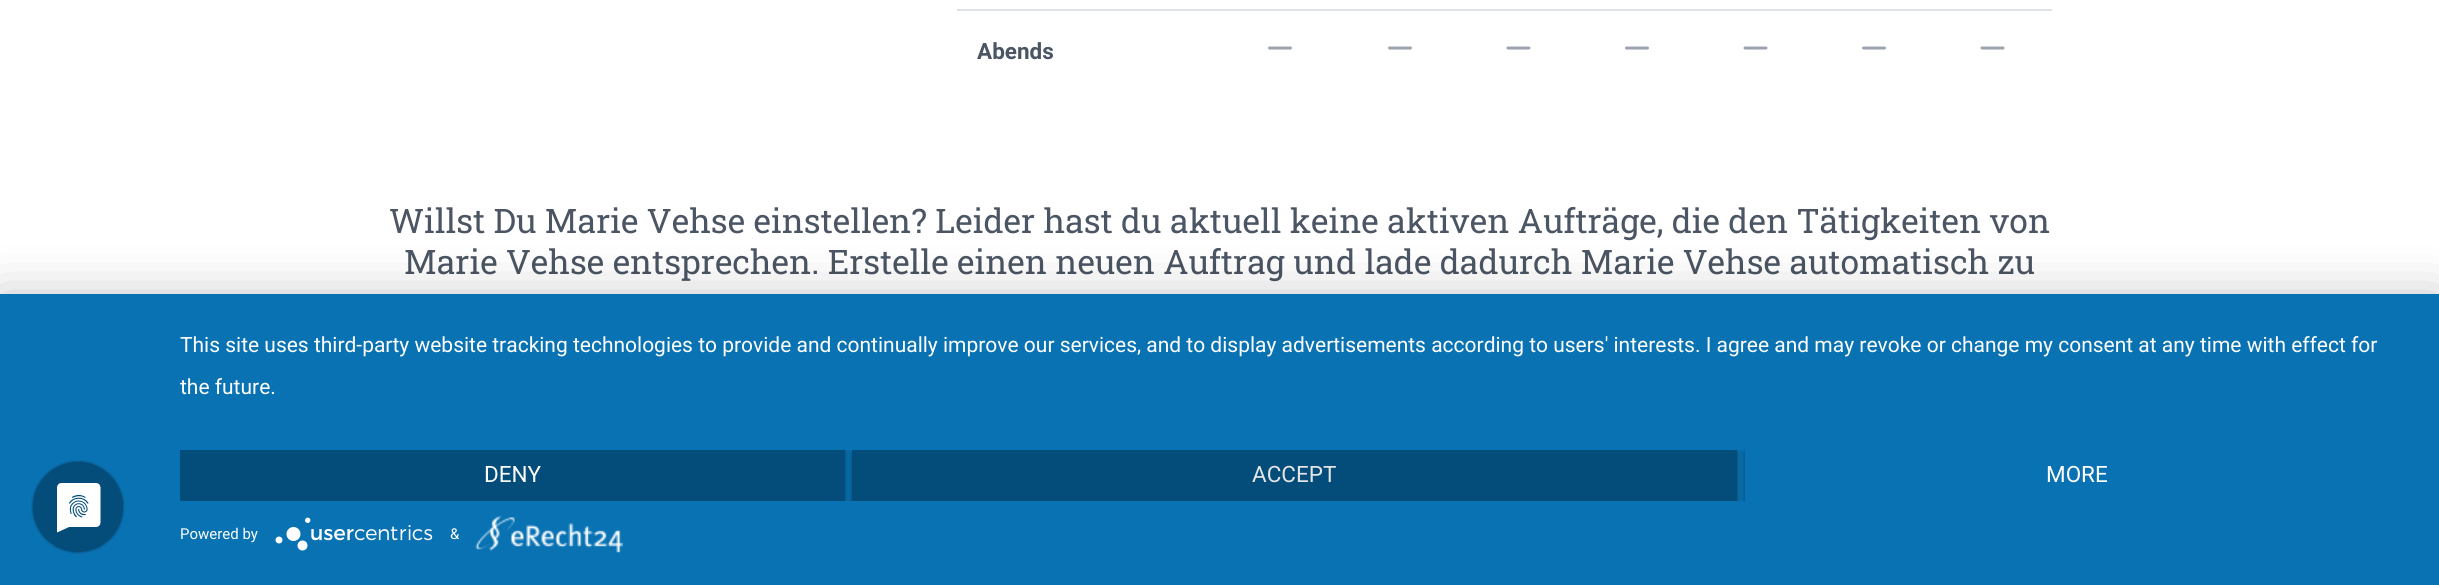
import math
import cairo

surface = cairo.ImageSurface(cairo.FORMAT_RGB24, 2439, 585)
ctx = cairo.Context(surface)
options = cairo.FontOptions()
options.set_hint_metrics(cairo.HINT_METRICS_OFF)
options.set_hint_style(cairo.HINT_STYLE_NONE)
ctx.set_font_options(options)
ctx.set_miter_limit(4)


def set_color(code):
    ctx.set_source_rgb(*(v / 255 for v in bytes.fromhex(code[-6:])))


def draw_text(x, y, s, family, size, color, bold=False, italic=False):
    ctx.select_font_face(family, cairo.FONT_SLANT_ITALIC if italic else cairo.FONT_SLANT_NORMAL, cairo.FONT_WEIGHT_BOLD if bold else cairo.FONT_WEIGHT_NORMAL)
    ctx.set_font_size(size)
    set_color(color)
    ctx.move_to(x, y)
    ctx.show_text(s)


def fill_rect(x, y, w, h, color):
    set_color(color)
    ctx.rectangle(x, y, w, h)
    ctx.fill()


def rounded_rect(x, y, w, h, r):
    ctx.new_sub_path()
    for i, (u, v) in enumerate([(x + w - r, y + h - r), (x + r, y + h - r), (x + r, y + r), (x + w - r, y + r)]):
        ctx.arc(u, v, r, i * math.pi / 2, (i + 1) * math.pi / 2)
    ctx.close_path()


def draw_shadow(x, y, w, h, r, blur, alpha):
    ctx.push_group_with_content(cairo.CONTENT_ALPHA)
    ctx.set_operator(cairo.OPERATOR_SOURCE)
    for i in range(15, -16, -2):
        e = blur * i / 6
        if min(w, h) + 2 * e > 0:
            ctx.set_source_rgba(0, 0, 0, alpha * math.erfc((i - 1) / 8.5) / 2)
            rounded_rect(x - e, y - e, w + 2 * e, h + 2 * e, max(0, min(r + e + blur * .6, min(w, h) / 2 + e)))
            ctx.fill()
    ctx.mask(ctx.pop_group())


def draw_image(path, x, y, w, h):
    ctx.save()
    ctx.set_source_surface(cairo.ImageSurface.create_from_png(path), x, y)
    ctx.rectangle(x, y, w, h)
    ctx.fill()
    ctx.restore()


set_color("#ffffff")
ctx.paint()
fill_rect(957, 9, 1095, 2, "#dee2e6")
ctx.new_path()
ctx.move_to(1982, 48)
ctx.line_to(2003, 48)
set_color("#9ca3af")
ctx.set_line_width(3)
ctx.set_line_cap(cairo.LINE_CAP_ROUND)
ctx.set_line_join(cairo.LINE_JOIN_ROUND)
ctx.stroke()
draw_text(977, 59, "Abends", "Roboto", 22.5, "#4b5563", bold=True)
ctx.new_path()
ctx.move_to(1269.5, 48)
ctx.line_to(1290.5, 48)
set_color("#9ca3af")
ctx.stroke()
ctx.new_path()
ctx.move_to(1389.5, 48)
ctx.line_to(1410.5, 48)
ctx.stroke()
ctx.new_path()
ctx.move_to(1508, 48)
ctx.line_to(1529, 48)
ctx.stroke()
ctx.new_path()
ctx.move_to(1626.5, 48)
ctx.line_to(1647.5, 48)
ctx.stroke()
ctx.new_path()
ctx.move_to(1745, 48)
ctx.line_to(1766, 48)
ctx.stroke()
ctx.new_path()
ctx.move_to(1863.5, 48)
ctx.line_to(1884.5, 48)
ctx.stroke()
draw_text(389, 233, "Willst Du Marie Vehse einstellen? Leider hast du aktuell keine aktiven Aufträge, die den Tätigkeiten von", "Roboto Slab", 33.75, "#4b5563")
draw_text(404, 274, "Marie Vehse entsprechen. Erstelle einen neuen Auftrag und lade dadurch Marie Vehse automatisch zu", "Roboto Slab", 33.75, "#4b5563")
set_color("#000000")
draw_shadow(0, 303, 2439, 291, 0, 27, 0.3)
fill_rect(0, 294, 2439, 291, "#0972b3")
draw_image("assets/img1.png", 31, 460, 94, 94)
draw_text(180, 352, "This site uses third-party website tracking technologies to provide and continually improve our services, and to display advertisements according to users' interests. I agree and may revoke or change my consent at any time with effect for", "Roboto", 21, "#ffffff")
draw_text(180, 394, "the future.", "Roboto", 21, "#ffffff")
ctx.save()
ctx.rectangle(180, 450, 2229, 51)
ctx.clip()
set_color("#000000")
draw_shadow(180, 452, 665, 51, 0, 3, 0.4)
ctx.restore()
fill_rect(180, 450, 665, 51, "#044d7a")
draw_text(484, 482, "DENY", "Roboto", 22.5, "#ffffff")
ctx.save()
ctx.rectangle(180, 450, 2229, 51)
ctx.clip()
set_color("#000000")
draw_shadow(852, 452, 885, 51, 0, 3, 0.4)
ctx.restore()
fill_rect(852, 450, 885, 51, "#044d7a")
draw_text(1252, 482, "ACCEPT", "Roboto", 22.5, "#e6e6e6")
ctx.save()
ctx.rectangle(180, 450, 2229, 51)
ctx.clip()
ctx.rectangle(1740, 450, 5, 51)
ctx.clip()
set_color("#000000")
draw_shadow(1745, 452, 664, 51, 0, 3, 0.4)
ctx.restore()
draw_text(2046, 482, "MORE", "Roboto", 22.5, "#ffffff")
draw_text(180, 539, "Powered by", "Roboto", 15, "#ffffff")
draw_image("assets/img2.png", 275, 517, 158, 34)
draw_text(450, 539, "&", "Roboto", 15, "#ffffff")
draw_image("assets/img3.png", 475, 516, 148, 37)
surface.write_to_png("output.png")
